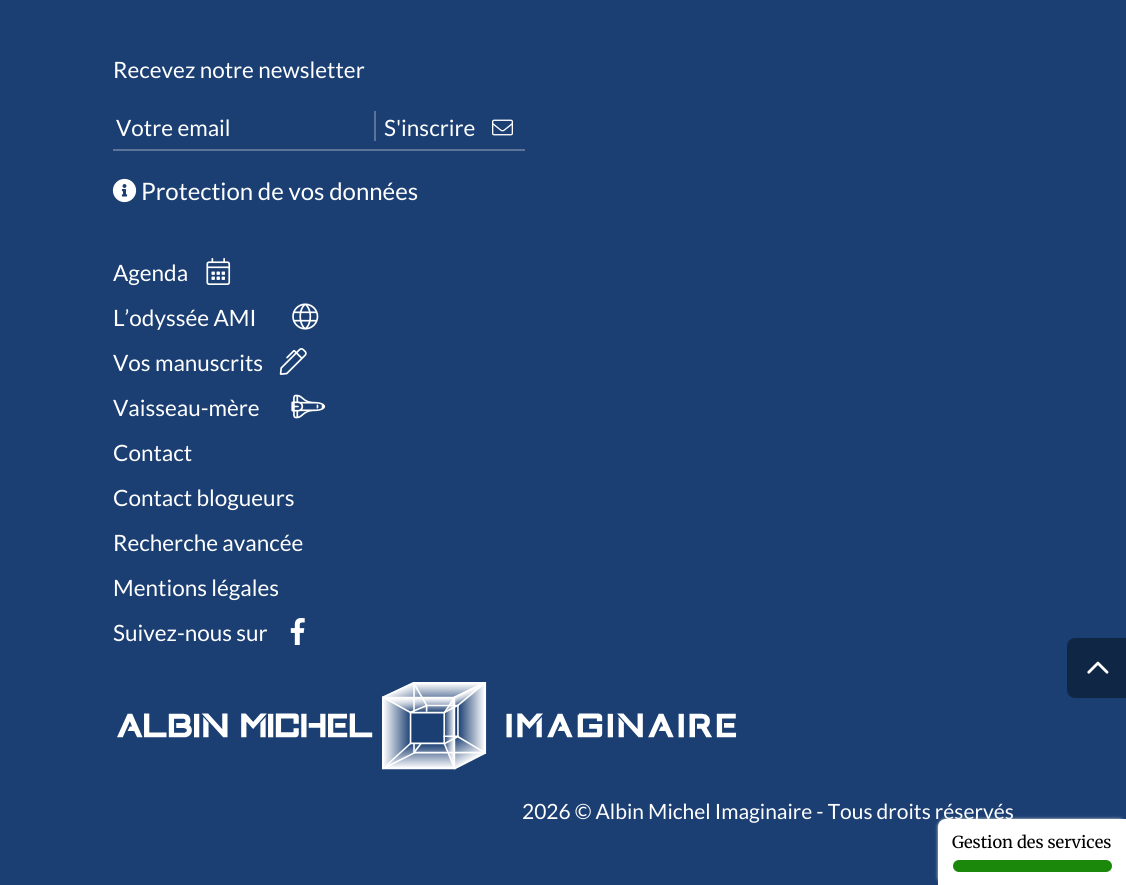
import math
import cairo

surface = cairo.ImageSurface(cairo.FORMAT_RGB24, 1126, 885)
ctx = cairo.Context(surface)
options = cairo.FontOptions()
options.set_hint_metrics(cairo.HINT_METRICS_OFF)
options.set_hint_style(cairo.HINT_STYLE_NONE)
ctx.set_font_options(options)
ctx.set_miter_limit(4)


def set_color(code):
    ctx.set_source_rgb(*(v / 255 for v in bytes.fromhex(code[-6:])))


def draw_text(x, y, s, family, size, color, bold=False, italic=False):
    ctx.select_font_face(family, cairo.FONT_SLANT_ITALIC if italic else cairo.FONT_SLANT_NORMAL, cairo.FONT_WEIGHT_BOLD if bold else cairo.FONT_WEIGHT_NORMAL)
    ctx.set_font_size(size)
    set_color(color)
    ctx.move_to(x, y)
    ctx.show_text(s)


def fill_rect(x, y, w, h, color):
    set_color(color)
    ctx.rectangle(x, y, w, h)
    ctx.fill()


def rounded_rect(x, y, w, h, r):
    ctx.new_sub_path()
    for i, (u, v) in enumerate([(x + w - r, y + h - r), (x + r, y + h - r), (x + r, y + r), (x + w - r, y + r)]):
        ctx.arc(u, v, r, i * math.pi / 2, (i + 1) * math.pi / 2)
    ctx.close_path()


def draw_shadow(x, y, w, h, r, blur, alpha):
    ctx.push_group_with_content(cairo.CONTENT_ALPHA)
    ctx.set_operator(cairo.OPERATOR_SOURCE)
    for i in range(15, -16, -2):
        e = blur * i / 6
        if min(w, h) + 2 * e > 0:
            ctx.set_source_rgba(0, 0, 0, alpha * math.erfc((i - 1) / 8.5) / 2)
            rounded_rect(x - e, y - e, w + 2 * e, h + 2 * e, max(0, min(r + e + blur * .6, min(w, h) / 2 + e)))
            ctx.fill()
    ctx.mask(ctx.pop_group())


def draw_image(path, x, y, w, h):
    ctx.save()
    ctx.set_source_surface(cairo.ImageSurface.create_from_png(path), x, y)
    ctx.rectangle(x, y, w, h)
    ctx.fill()
    ctx.restore()


set_color("#1b3f73")
ctx.paint()
draw_text(113, 78, "Recevez notre newsletter", "Lato", 22.5, "#ffffff")
draw_text(116, 136, "Votre email", "Lato", 22.5, "#ffffff")
fill_rect(374, 111, 2, 30, "#5b7498")
draw_text(384, 136, "S'inscrire", "Lato", 22.5, "#ffffff")
draw_image("assets/img1.png", 492, 119, 21, 17)
fill_rect(113, 149, 412, 2, "#5b7498")
draw_image("assets/img2.png", 112, 178, 25, 25)
draw_text(141, 200, "Protection de vos données", "Lato", 24, "#ffffff")
draw_text(113, 281, "Agenda", "Lato", 22.5, "#ffffff")
draw_image("assets/img3.png", 206, 258, 25, 27)
draw_text(113, 326, "L’odyssée AMI", "Lato", 22.5, "#ffffff")
draw_image("assets/img4.png", 292, 303, 27, 27)
draw_text(113, 371, "Vos manuscrits", "Lato", 22.5, "#ffffff")
draw_image("assets/img5.png", 279, 348, 28, 27)
draw_text(113, 416, "Vaisseau-mère", "Lato", 22.5, "#ffffff")
draw_image("assets/img6.png", 291, 394, 35, 25)
draw_text(113, 461, "Contact", "Lato", 22.5, "#ffffff")
draw_text(113, 506, "Contact blogueurs", "Lato", 22.5, "#ffffff")
draw_text(113, 551, "Recherche avancée", "Lato", 22.5, "#ffffff")
draw_text(113, 596, "Mentions légales", "Lato", 22.5, "#ffffff")
draw_text(113, 641, "Suivez-nous sur", "Lato", 22.5, "#ffffff")
draw_image("assets/img7.png", 290, 618, 15, 27)
draw_image("assets/img8.png", 117, 682, 620, 88)
draw_text(522, 819, "2026 © Albin Michel Imaginaire - Tous droits réservés", "Lato", 21, "#ffffff")
set_color("#102645")
ctx.new_path()
ctx.move_to(1075, 638)
ctx.line_to(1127, 638)
ctx.line_to(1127, 698)
ctx.line_to(1075, 698)
ctx.curve_to(1070.5, 698, 1067, 694.5, 1067, 690)
ctx.line_to(1067, 646)
ctx.curve_to(1067, 641.5, 1070.5, 638, 1075, 638)
ctx.close_path()
ctx.fill()
draw_image("assets/img9.png", 1087, 661, 22, 13)
set_color("#dddddd")
draw_shadow(938, 819, 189, 66, 8, 1.5, 1)
set_color("#ffffff")
ctx.new_path()
ctx.move_to(946, 819)
ctx.line_to(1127, 819)
ctx.line_to(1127, 885)
ctx.line_to(938, 885)
ctx.line_to(938, 827)
ctx.curve_to(938, 822.5, 941.5, 819, 946, 819)
ctx.close_path()
ctx.fill()
draw_text(952, 848, "Gestion des services", "Merriweather Light", 16.5, "#000000")
set_color("#1b870b")
rounded_rect(953, 860, 159, 12, 6)
ctx.fill()
surface.write_to_png("output.png")
